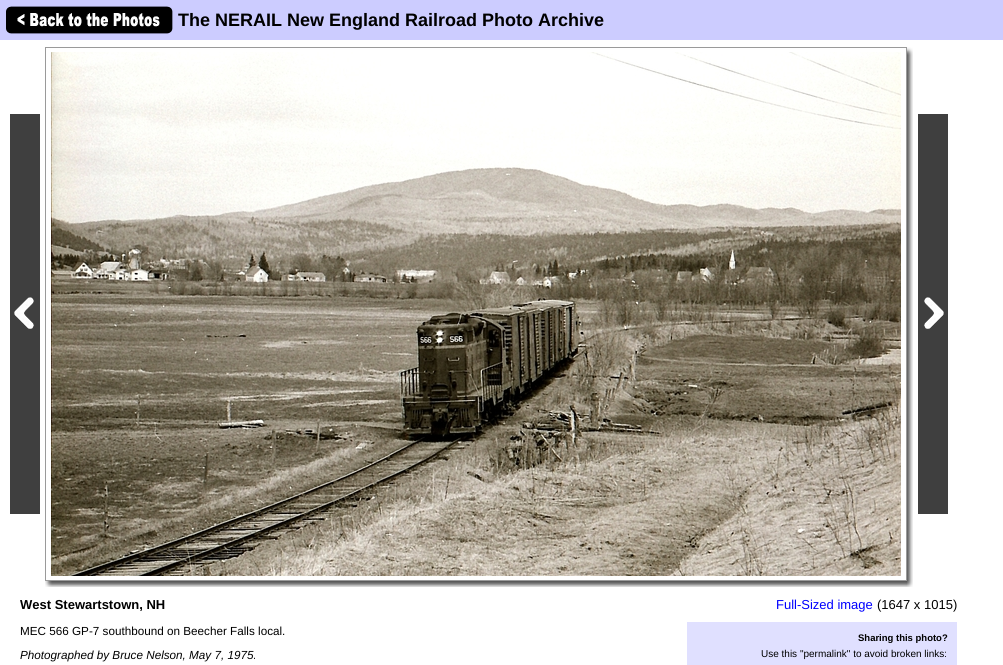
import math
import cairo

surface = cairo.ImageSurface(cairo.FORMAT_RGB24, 1003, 665)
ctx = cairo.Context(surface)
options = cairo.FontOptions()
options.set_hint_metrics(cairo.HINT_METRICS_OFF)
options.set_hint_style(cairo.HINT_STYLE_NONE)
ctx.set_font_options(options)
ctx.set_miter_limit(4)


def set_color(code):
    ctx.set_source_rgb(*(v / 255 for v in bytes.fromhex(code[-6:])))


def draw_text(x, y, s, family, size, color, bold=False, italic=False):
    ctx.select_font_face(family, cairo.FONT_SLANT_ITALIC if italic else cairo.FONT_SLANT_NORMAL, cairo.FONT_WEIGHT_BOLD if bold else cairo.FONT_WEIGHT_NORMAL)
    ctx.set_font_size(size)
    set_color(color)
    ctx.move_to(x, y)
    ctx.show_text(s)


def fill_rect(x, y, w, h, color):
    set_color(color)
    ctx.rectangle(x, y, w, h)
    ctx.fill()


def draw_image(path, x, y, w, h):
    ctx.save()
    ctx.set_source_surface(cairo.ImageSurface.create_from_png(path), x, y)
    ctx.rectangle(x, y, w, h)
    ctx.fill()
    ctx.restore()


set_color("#ffffff")
ctx.paint()
fill_rect(0, 0, 1003, 40, "#ccccff")
draw_image("assets/img1.png", 6, 6, 167, 28)
draw_text(178, 26, "The NERAIL New England Railroad Photo Archive", "Liberation Sans", 18, "#000000", bold=True)
draw_image("assets/img2.png", 10, 114, 30, 400)
ctx.rectangle(45.5, 47.5, 861, 533)
set_color("#9a9a9a")
ctx.set_line_width(1)
ctx.stroke()
draw_image("assets/img3.png", 51, 52, 850, 524)
draw_image("assets/img4.png", 907, 47, 6, 534)
draw_image("assets/img5.png", 918, 114, 30, 400)
draw_image("assets/img6.png", 45, 581, 862, 6)
draw_image("assets/img7.png", 907, 581, 6, 6)
draw_text(20, 609, "West Stewartstown, NH", "Liberation Sans", 13, "#000000", bold=True)
draw_text(20, 635, "MEC 566 GP-7 southbound on Beecher Falls local.", "Liberation Sans", 11.7, "#000000")
draw_text(20, 659, "Photographed by Bruce Nelson, May 7, 1975.", "Liberation Sans", 11.7, "#000000", italic=True)
draw_text(776, 609, "Full-Sized image", "Liberation Sans", 13, "#0000ff")
draw_text(877, 609, "(1647 x 1015)", "Liberation Sans", 13, "#000000")
fill_rect(687, 622, 270, 43, "#e0e0ff")
draw_text(858, 641, "Sharing this photo?", "Liberation Sans", 9.5, "#000000", bold=True)
draw_text(761, 657, "Use this \"permalink\" to avoid broken links:", "Liberation Sans", 10, "#000000")
surface.write_to_png("output.png")
